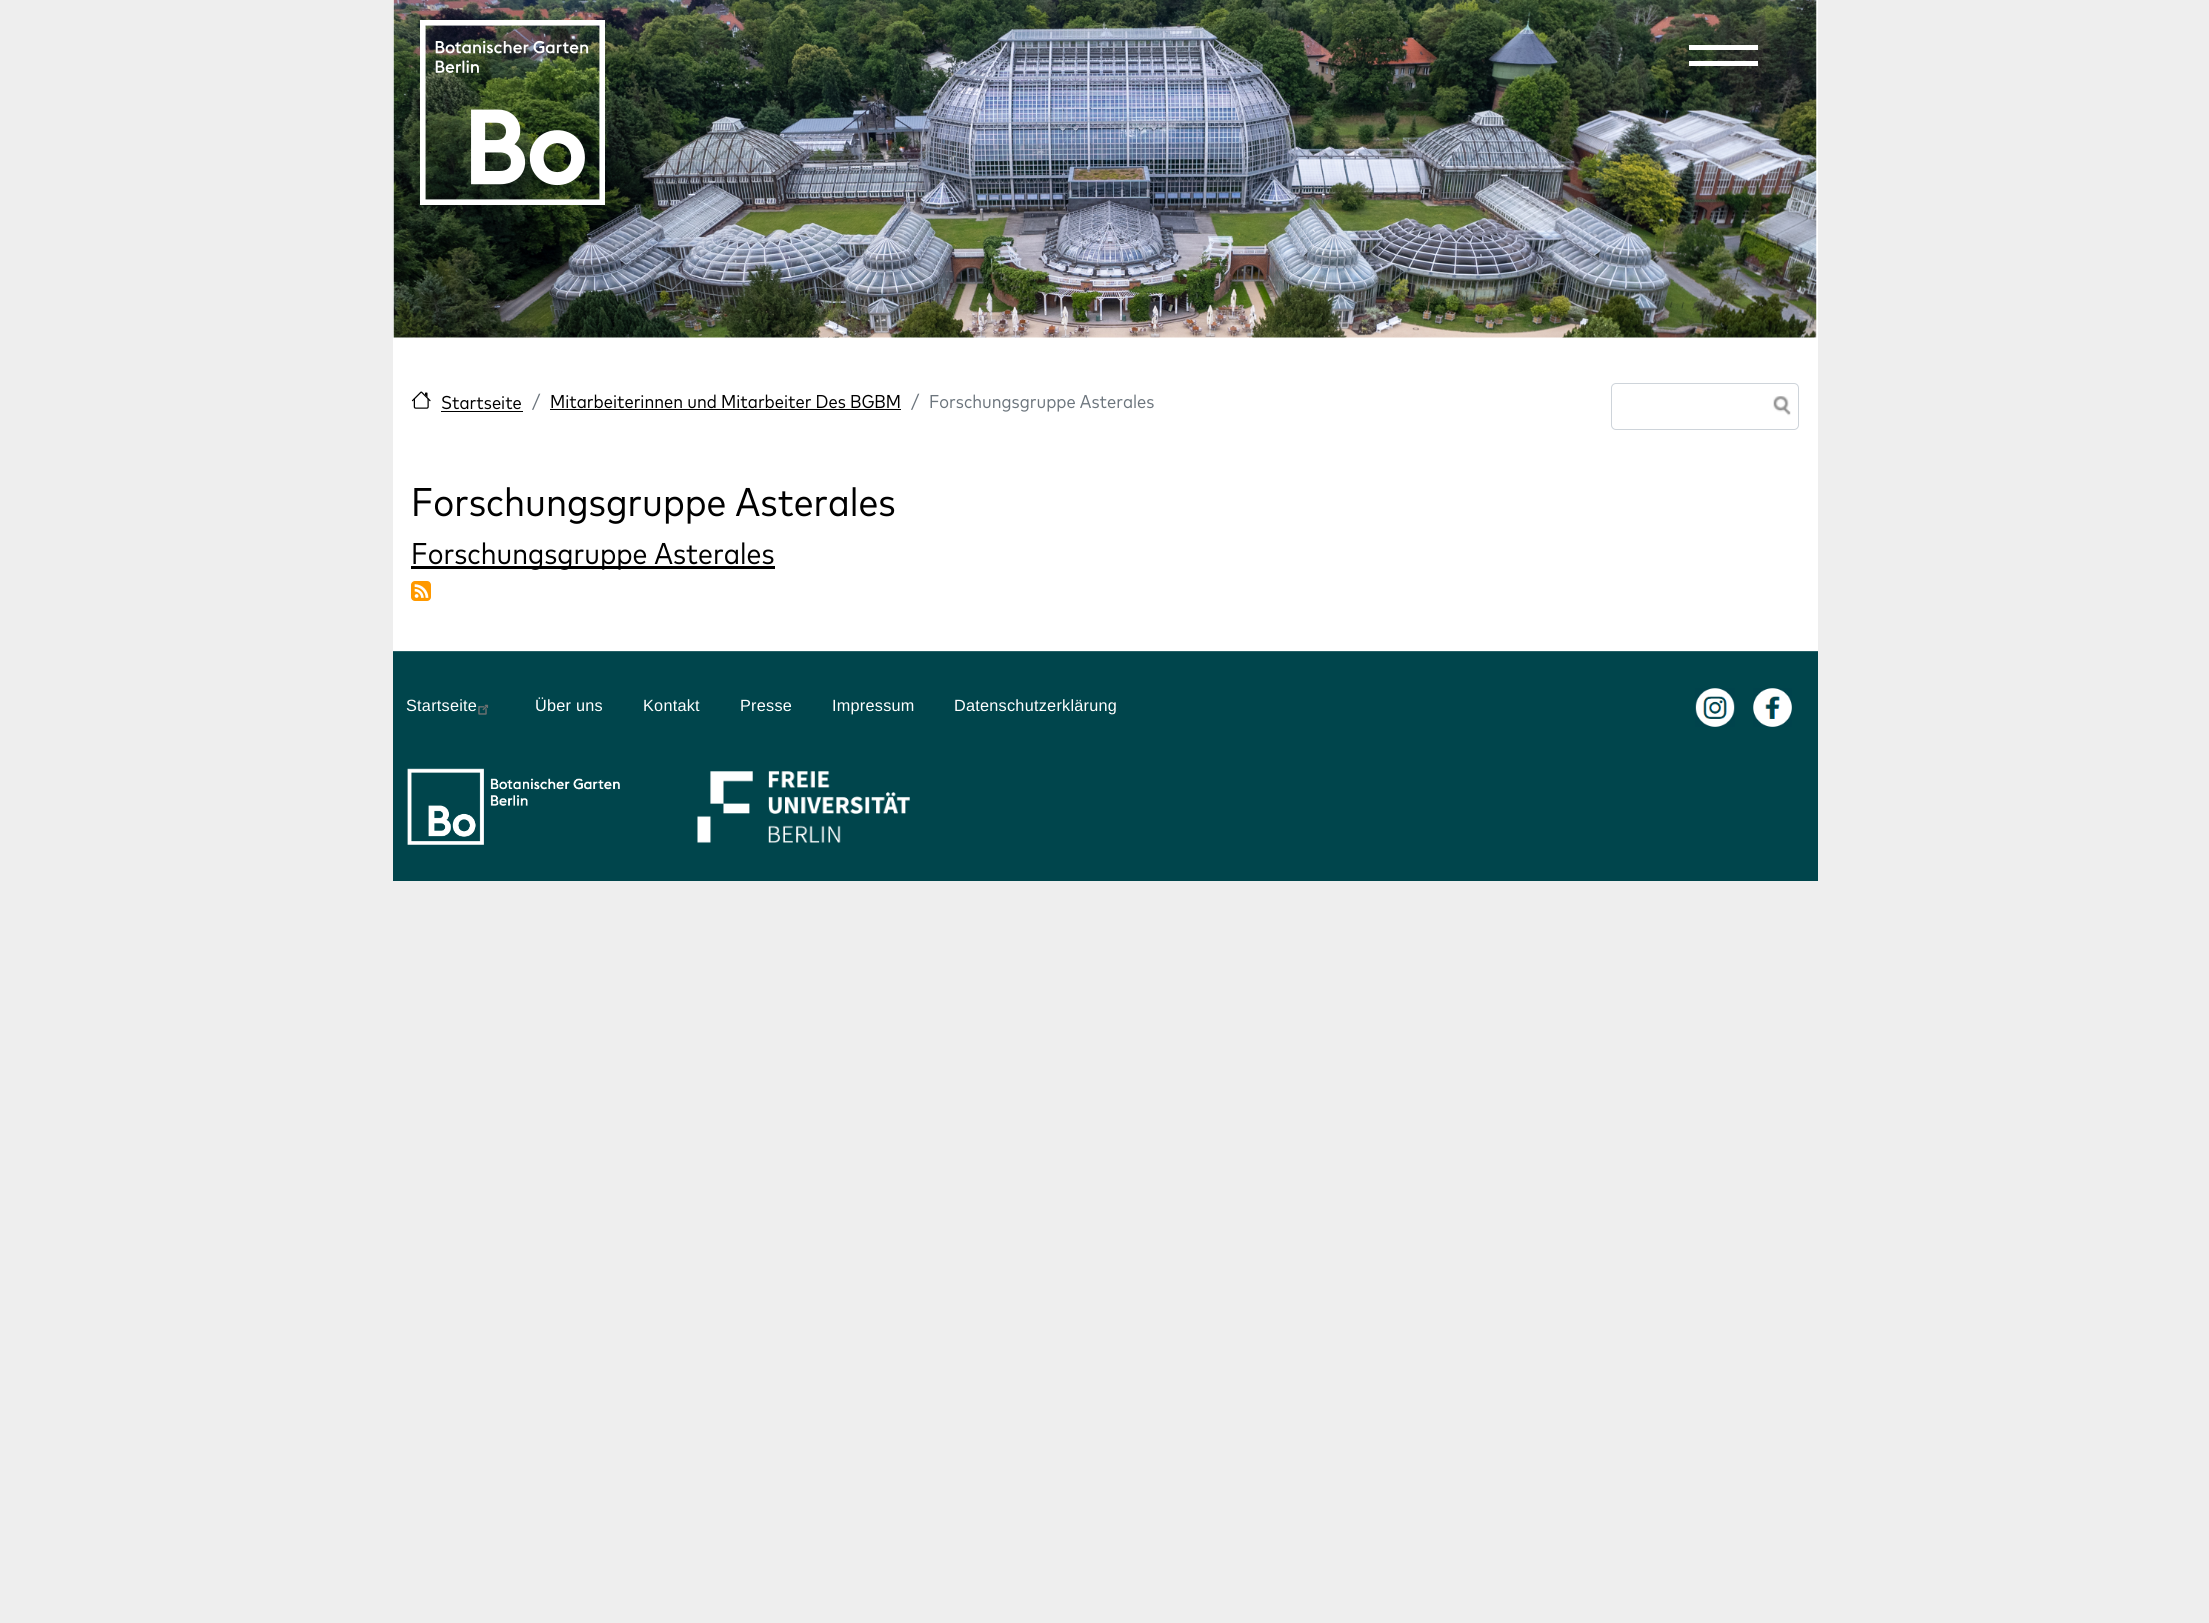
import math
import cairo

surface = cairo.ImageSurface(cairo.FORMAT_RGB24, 2209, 1623)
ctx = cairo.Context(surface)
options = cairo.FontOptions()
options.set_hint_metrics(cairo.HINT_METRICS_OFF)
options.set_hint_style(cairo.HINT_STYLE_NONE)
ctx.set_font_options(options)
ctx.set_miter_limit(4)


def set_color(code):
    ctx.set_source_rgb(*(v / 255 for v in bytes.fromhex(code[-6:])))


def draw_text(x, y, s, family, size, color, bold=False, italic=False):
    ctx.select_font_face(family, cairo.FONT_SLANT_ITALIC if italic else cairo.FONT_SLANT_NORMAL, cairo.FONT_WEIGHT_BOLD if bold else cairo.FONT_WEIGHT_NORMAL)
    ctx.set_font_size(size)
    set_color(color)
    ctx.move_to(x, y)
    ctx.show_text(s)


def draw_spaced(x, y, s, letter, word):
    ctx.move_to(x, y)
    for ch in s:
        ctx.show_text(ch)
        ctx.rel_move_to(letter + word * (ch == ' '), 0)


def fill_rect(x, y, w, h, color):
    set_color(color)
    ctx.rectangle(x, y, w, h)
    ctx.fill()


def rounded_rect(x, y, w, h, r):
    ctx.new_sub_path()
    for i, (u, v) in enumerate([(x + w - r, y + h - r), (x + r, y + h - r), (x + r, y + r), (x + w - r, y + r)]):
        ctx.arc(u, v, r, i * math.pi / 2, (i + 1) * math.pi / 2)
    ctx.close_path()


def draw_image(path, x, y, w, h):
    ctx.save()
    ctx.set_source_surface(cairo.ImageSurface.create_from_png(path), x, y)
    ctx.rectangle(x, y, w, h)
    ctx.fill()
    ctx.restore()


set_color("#eeeeee")
ctx.paint()
fill_rect(393, 0, 1425, 651, "#ffffff")
draw_image("assets/img2.png", 393, 0, 1424, 338)
draw_image("assets/img1.png", 420, 20, 185, 185)
fill_rect(1689, 45, 69, 5, "#ffffff")
fill_rect(1689, 61, 69, 5, "#ffffff")
draw_image("assets/img3.png", 411, 391, 20, 18)
draw_text(441, 409, "Startseite", "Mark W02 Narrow", 18.6, "#000000")
fill_rect(441, 411, 82, 1, "#000000")
draw_text(532, 408, "/", "Mark W02 Narrow", 18.6, "#6c757d")
draw_text(550, 408, "Mitarbeiterinnen und Mitarbeiter Des BGBM", "Mark W02 Narrow", 18.6, "#000000")
fill_rect(550, 409, 351, 1, "#000000")
draw_text(911, 408, "/", "Mark W02 Narrow", 18.6, "#6c757d")
draw_text(929, 408, "Forschungsgruppe Asterales", "Mark W02 Narrow", 18.6, "#6c757d")
rounded_rect(1611.5, 383.5, 187, 46, 4.5)
set_color("#ced4da")
ctx.set_line_width(1)
ctx.stroke()
draw_image("assets/img4.png", 1773, 396, 18, 20)
draw_text(411, 516, "Forschungsgruppe Asterales", "Mark W02 Narrow", 40, "#000000")
fill_rect(411, 566, 364, 3, "#000000")
draw_text(411, 564, "Forschungsgruppe Asterales", "Mark W02 Narrow", 30, "#000000")
draw_image("assets/img5.png", 411, 581, 20, 20)
fill_rect(393, 652, 1425, 229, "#00454c")
fill_rect(393, 651, 1425, 1, "#266167")
ctx.select_font_face("Liberation Sans")
ctx.set_font_size(16.25)
set_color("#ffffff")
draw_spaced(406, 711, "Startseite", 0.25, 0)
draw_image("assets/img6.png", 478, 704, 11, 11)
draw_spaced(535, 711, "Über uns", 0.25, 0)
draw_spaced(643, 711, "Kontakt", 0.25, 0)
draw_spaced(740, 711, "Presse", 0.25, 0)
draw_spaced(832, 711, "Impressum", 0.25, 0)
draw_spaced(954, 711, "Datenschutzerklärung", 0.25, 0)
draw_image("assets/img7.png", 1695, 688, 40, 39)
draw_image("assets/img8.png", 1753, 688, 39, 39)
draw_image("assets/img9.png", 407, 768, 213, 77)
draw_image("assets/img10.png", 697, 771, 213, 72)
surface.write_to_png("output.png")
